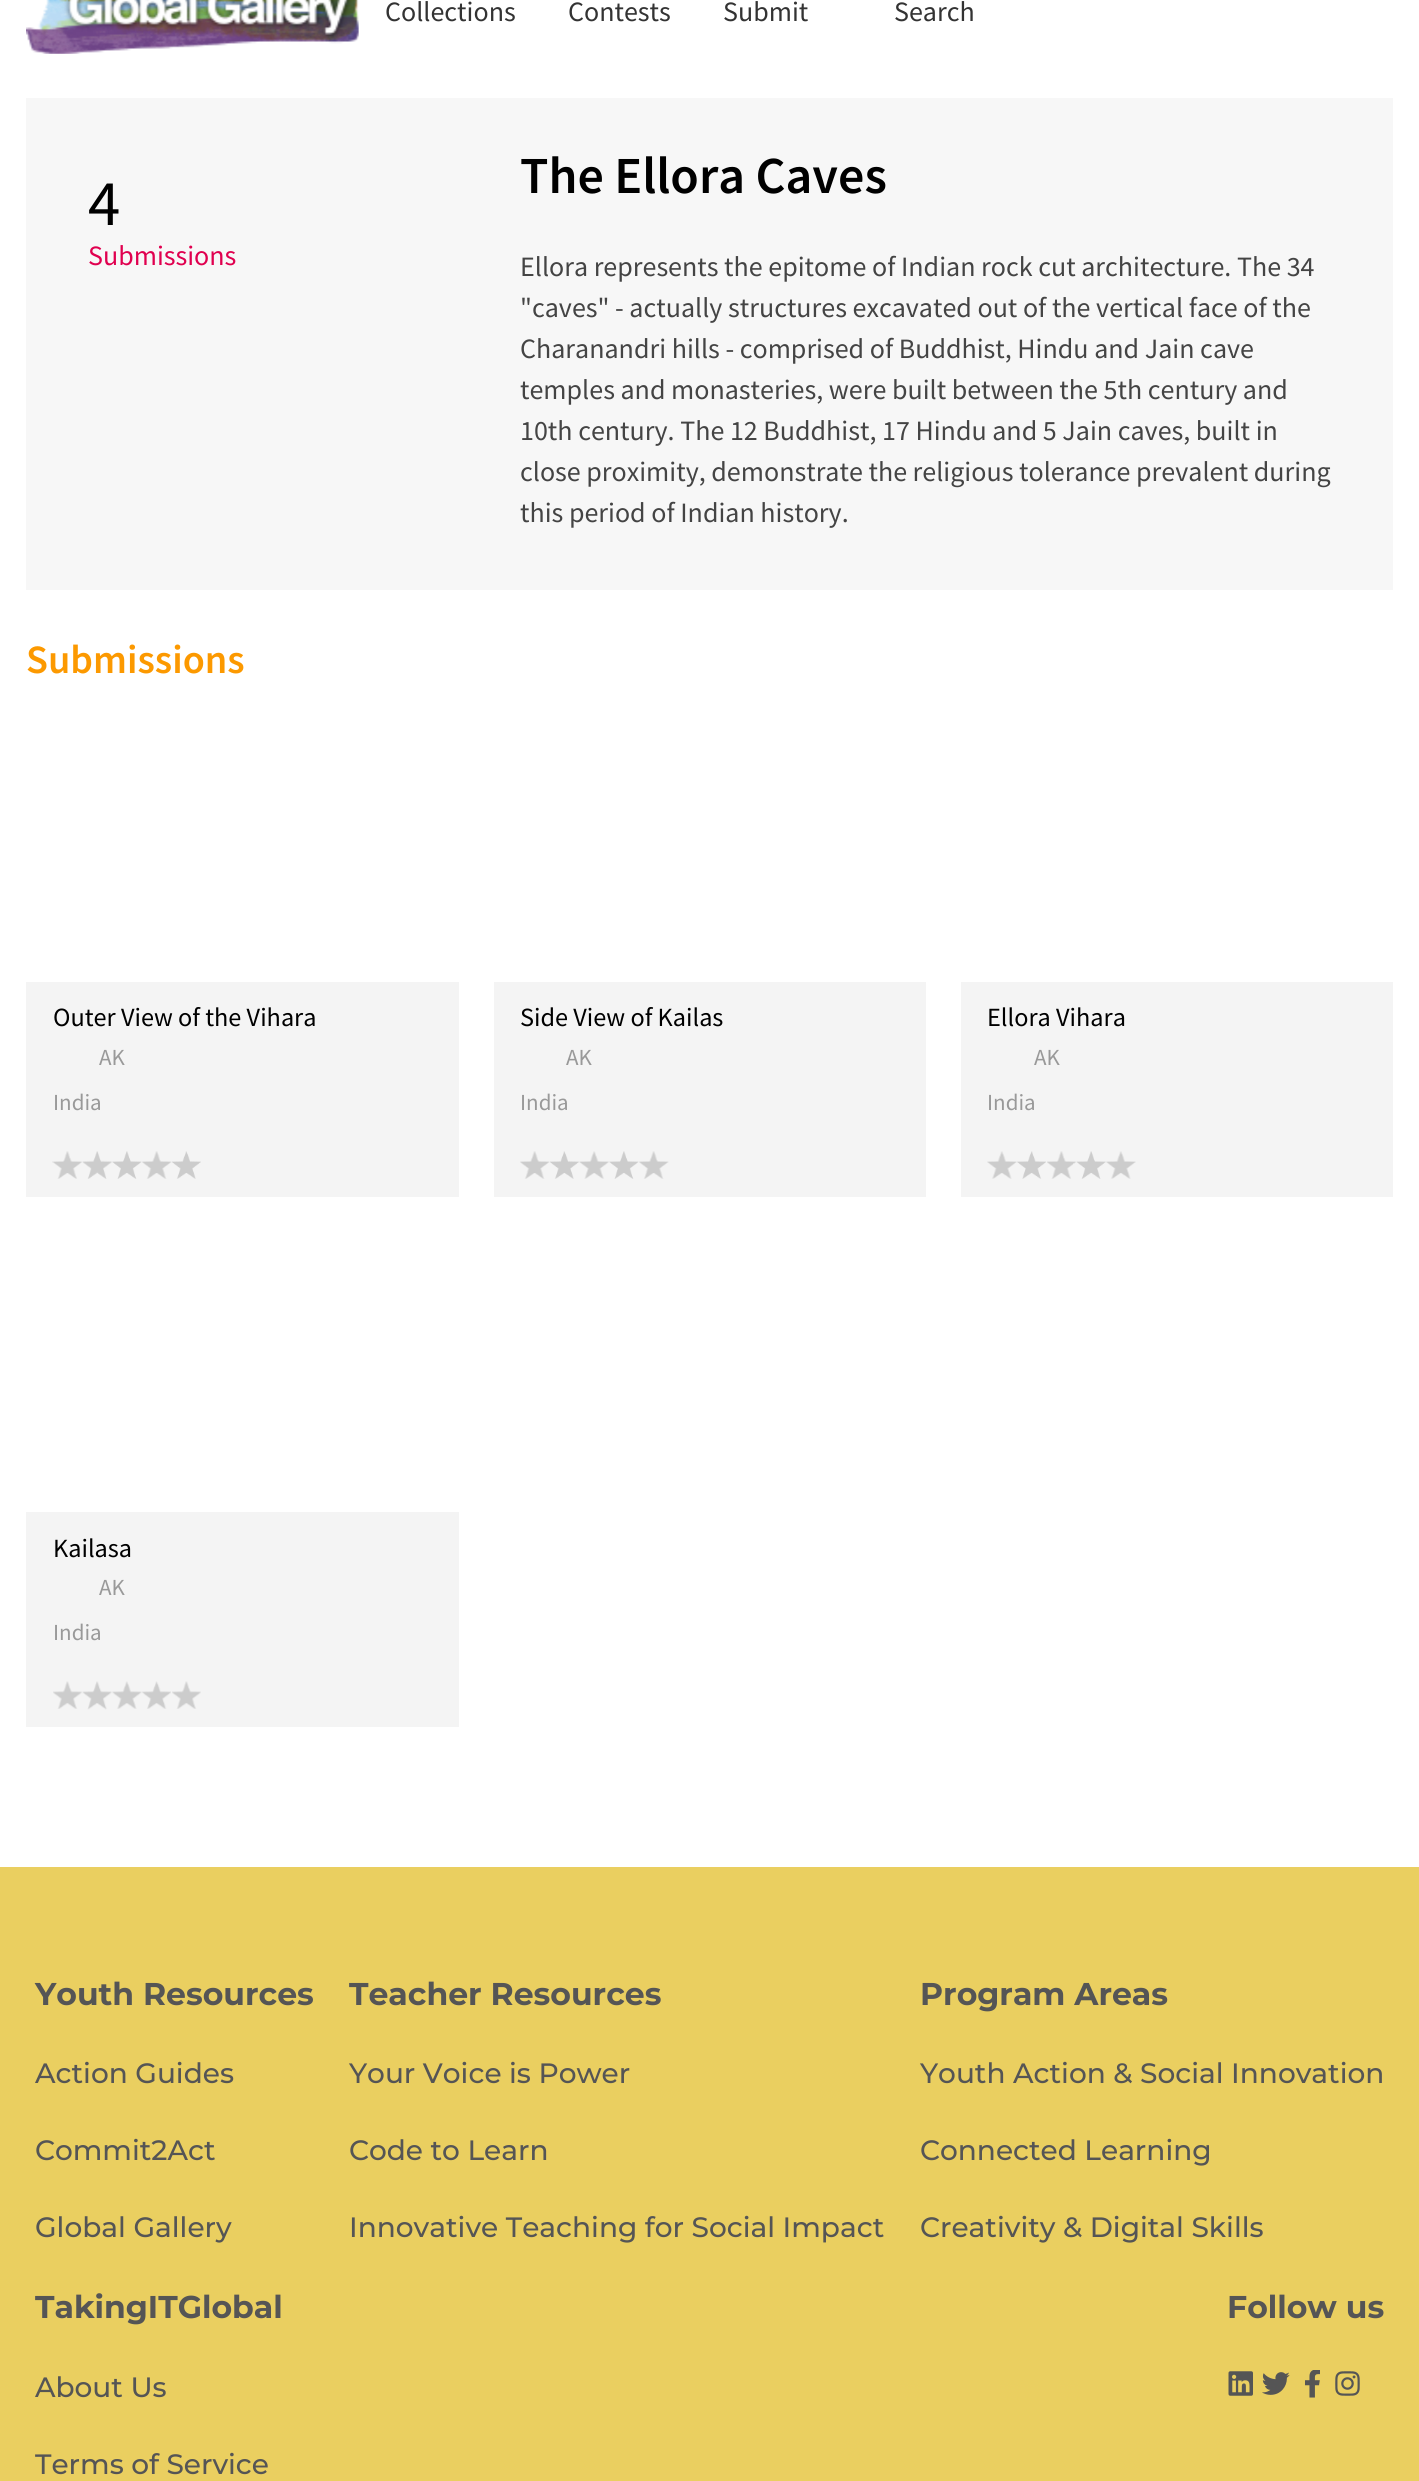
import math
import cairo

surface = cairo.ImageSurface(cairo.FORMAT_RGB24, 1419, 2481)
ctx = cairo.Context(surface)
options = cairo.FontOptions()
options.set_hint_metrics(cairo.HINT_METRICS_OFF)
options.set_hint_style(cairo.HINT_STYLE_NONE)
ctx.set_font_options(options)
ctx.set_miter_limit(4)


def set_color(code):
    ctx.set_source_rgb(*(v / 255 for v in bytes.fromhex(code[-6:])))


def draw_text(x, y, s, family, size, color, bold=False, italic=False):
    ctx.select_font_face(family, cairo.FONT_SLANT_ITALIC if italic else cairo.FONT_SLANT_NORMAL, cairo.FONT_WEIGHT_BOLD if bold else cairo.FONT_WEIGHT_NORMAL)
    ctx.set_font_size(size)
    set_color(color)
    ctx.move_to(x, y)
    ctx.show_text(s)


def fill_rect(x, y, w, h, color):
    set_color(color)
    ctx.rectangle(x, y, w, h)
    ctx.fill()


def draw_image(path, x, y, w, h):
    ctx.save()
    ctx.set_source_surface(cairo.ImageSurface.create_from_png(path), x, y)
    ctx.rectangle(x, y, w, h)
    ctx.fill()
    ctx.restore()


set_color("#ffffff")
ctx.paint()
draw_image("assets/img1.png", 26, 0, 333, 54)
draw_text(385, 21, "Collections", "Source Sans Pro", 28, "#333333")
draw_text(568, 21, "Contests", "Source Sans Pro", 28, "#333333")
draw_text(723, 21, "Submit", "Source Sans Pro", 28, "#333333")
draw_text(894, 21, "Search", "Source Sans Pro", 28, "#333333")
fill_rect(26, 98, 1367, 492, "#f7f7f7")
draw_text(88, 225, "4", "Source Sans Pro", 65, "#000000")
draw_text(88, 265, "Submissions", "Source Sans Pro", 28, "#e0004f")
draw_text(520, 193, "The Ellora Caves", "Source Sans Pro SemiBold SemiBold", 52, "#000000")
draw_text(520, 276, "Ellora represents the epitome of Indian rock cut architecture. The 34", "Source Sans Pro", 28, "#444444")
draw_text(520, 317, "\"caves\" - actually structures excavated out of the vertical face of the", "Source Sans Pro", 28, "#444444")
draw_text(520, 358, "Charanandri hills - comprised of Buddhist, Hindu and Jain cave", "Source Sans Pro", 28, "#444444")
draw_text(520, 399, "temples and monasteries, were built between the 5th century and", "Source Sans Pro", 28, "#444444")
draw_text(520, 440, "10th century. The 12 Buddhist, 17 Hindu and 5 Jain caves, built in", "Source Sans Pro", 28, "#444444")
draw_text(520, 481, "close proximity, demonstrate the religious tolerance prevalent during", "Source Sans Pro", 28, "#444444")
draw_text(520, 522, "this period of Indian history.", "Source Sans Pro", 28, "#444444")
draw_text(26, 673, "Submissions", "Source Sans Pro SemiBold SemiBold", 40.25, "#fc9900")
fill_rect(26, 982, 433, 215, "#f4f4f4")
draw_text(53, 1026, "Outer View of the Vihara", "Source Sans Pro", 26.25, "#000000")
draw_text(99, 1065, "AK", "Source Sans Pro", 23, "#999999")
draw_text(53, 1110, "India", "Source Sans Pro", 23, "#999999")
draw_image("assets/img2.png", 52, 1151, 30, 28)
draw_image("assets/img3.png", 82, 1151, 30, 28)
draw_image("assets/img4.png", 112, 1151, 30, 28)
draw_image("assets/img5.png", 142, 1151, 30, 28)
draw_image("assets/img6.png", 172, 1151, 29, 28)
fill_rect(494, 982, 432, 215, "#f4f4f4")
draw_text(520, 1026, "Side View of Kailas", "Source Sans Pro", 26.25, "#000000")
draw_text(566, 1065, "AK", "Source Sans Pro", 23, "#999999")
draw_text(520, 1110, "India", "Source Sans Pro", 23, "#999999")
draw_image("assets/img5.png", 520, 1151, 30, 28)
draw_image("assets/img6.png", 550, 1151, 29, 28)
draw_image("assets/img7.png", 579, 1151, 30, 28)
draw_image("assets/img4.png", 609, 1151, 30, 28)
draw_image("assets/img5.png", 639, 1151, 30, 28)
fill_rect(961, 982, 432, 215, "#f4f4f4")
draw_text(987, 1026, "Ellora Vihara", "Source Sans Pro", 26.25, "#000000")
draw_text(1034, 1065, "AK", "Source Sans Pro", 23, "#999999")
draw_text(987, 1110, "India", "Source Sans Pro", 23, "#999999")
draw_image("assets/img8.png", 987, 1151, 30, 28)
draw_image("assets/img9.png", 1017, 1151, 29, 28)
draw_image("assets/img10.png", 1047, 1151, 29, 28)
draw_image("assets/img11.png", 1076, 1151, 30, 28)
draw_image("assets/img8.png", 1106, 1151, 30, 28)
fill_rect(26, 1512, 433, 215, "#f4f4f4")
draw_text(53, 1557, "Kailasa", "Source Sans Pro", 26.25, "#000000")
draw_text(99, 1595, "AK", "Source Sans Pro", 23, "#999999")
draw_text(53, 1640, "India", "Source Sans Pro", 23, "#999999")
draw_image("assets/img12.png", 53, 1681, 29, 28)
draw_image("assets/img13.png", 82, 1681, 30, 29)
draw_image("assets/img14.png", 112, 1681, 30, 28)
draw_image("assets/img15.png", 142, 1681, 29, 28)
draw_image("assets/img12.png", 172, 1681, 29, 28)
fill_rect(0, 1867, 1419, 614, "#eacf60")
draw_text(35, 2005, "Youth Resources", "Montserrat", 31.5, "#555555", bold=True)
draw_text(35, 2083, "Action Guides", "Montserrat Medium", 28, "#555555")
draw_text(35, 2160, "Commit2Act", "Montserrat Medium", 28, "#555555")
draw_text(35, 2237, "Global Gallery", "Montserrat Medium", 28, "#555555")
draw_text(349, 2005, "Teacher Resources", "Montserrat", 31.5, "#555555", bold=True)
draw_text(349, 2083, "Your Voice is Power", "Montserrat Medium", 28, "#555555")
draw_text(349, 2160, "Code to Learn", "Montserrat Medium", 28, "#555555")
draw_text(349, 2237, "Innovative Teaching for Social Impact", "Montserrat Medium", 28, "#555555")
draw_text(920, 2005, "Program Areas", "Montserrat", 31.5, "#555555", bold=True)
draw_text(920, 2083, "Youth Action & Social Innovation", "Montserrat Medium", 28, "#555555")
draw_text(920, 2160, "Connected Learning", "Montserrat Medium", 28, "#555555")
draw_text(920, 2237, "Creativity & Digital Skills", "Montserrat Medium", 28, "#555555")
draw_text(35, 2318, "TakingITGlobal", "Montserrat", 31.5, "#555555", bold=True)
draw_text(35, 2397, "About Us", "Montserrat Medium", 28, "#555555")
draw_text(35, 2474, "Terms of Service", "Montserrat Medium", 28, "#555555")
draw_text(1227, 2318, "Follow us", "Montserrat", 31.5, "#555555", bold=True)
draw_image("assets/img16.png", 1228, 2371, 25, 25)
draw_image("assets/img17.png", 1262, 2372, 28, 23)
draw_image("assets/img18.png", 1305, 2370, 15, 28)
draw_image("assets/img19.png", 1335, 2371, 25, 25)
surface.write_to_png("output.png")
